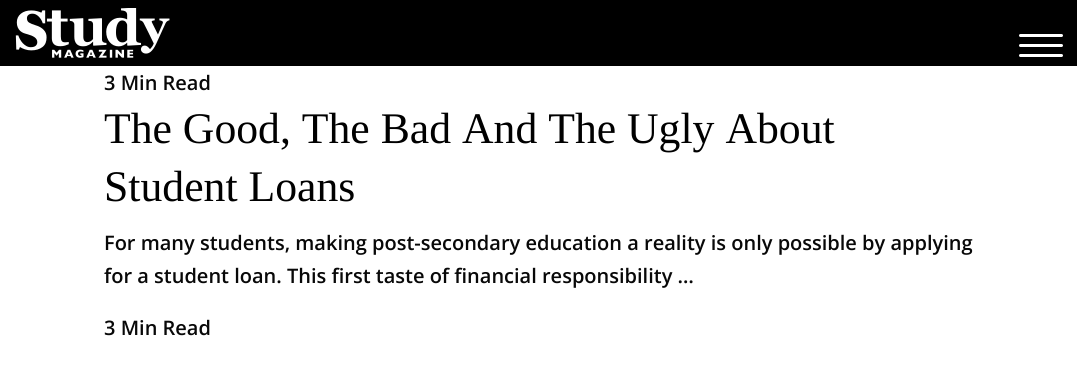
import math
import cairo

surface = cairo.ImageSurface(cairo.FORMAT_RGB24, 1077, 375)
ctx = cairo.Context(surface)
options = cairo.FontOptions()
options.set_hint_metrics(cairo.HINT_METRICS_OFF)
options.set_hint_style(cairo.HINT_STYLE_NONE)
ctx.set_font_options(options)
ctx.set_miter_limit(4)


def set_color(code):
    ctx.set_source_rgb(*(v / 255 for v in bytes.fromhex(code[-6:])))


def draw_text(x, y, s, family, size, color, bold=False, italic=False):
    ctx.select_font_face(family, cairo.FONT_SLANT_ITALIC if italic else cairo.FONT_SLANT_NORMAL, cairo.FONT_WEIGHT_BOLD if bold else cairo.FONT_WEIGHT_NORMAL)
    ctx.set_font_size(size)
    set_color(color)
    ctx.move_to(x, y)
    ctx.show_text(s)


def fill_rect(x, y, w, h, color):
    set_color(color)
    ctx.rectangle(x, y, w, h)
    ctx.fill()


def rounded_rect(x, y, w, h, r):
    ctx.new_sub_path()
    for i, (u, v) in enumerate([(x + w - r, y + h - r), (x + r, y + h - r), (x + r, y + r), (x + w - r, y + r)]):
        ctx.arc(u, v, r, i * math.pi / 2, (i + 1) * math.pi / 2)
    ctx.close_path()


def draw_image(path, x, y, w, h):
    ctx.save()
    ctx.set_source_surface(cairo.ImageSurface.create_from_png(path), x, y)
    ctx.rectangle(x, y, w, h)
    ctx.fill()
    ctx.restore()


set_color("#ffffff")
ctx.paint()
fill_rect(0, 0, 1077, 66, "#000000")
draw_image("assets/img1.png", 15, 8, 155, 50)
set_color("#ffffff")
rounded_rect(1019, 34, 44, 3, 1.5)
ctx.fill()
rounded_rect(1019, 44, 44, 3, 1.5)
ctx.fill()
rounded_rect(1019, 54, 44, 3, 1.5)
ctx.fill()
draw_text(104, 90, "3 Min Read", "Open Sans SemiBold", 20, "#080808")
draw_text(104, 143, "The Good, The Bad And The Ugly About", "Liberation Serif", 43.7, "#000000")
draw_text(104, 201, "Student Loans", "Liberation Serif", 43.7, "#000000")
draw_text(104, 250, "For many students, making post-secondary education a reality is only possible by applying", "Open Sans SemiBold", 20, "#080808")
draw_text(104, 283, "for a student loan. This first taste of financial responsibility …", "Open Sans SemiBold", 20, "#080808")
draw_text(104, 335, "3 Min Read", "Open Sans SemiBold", 20, "#080808")
surface.write_to_png("output.png")
